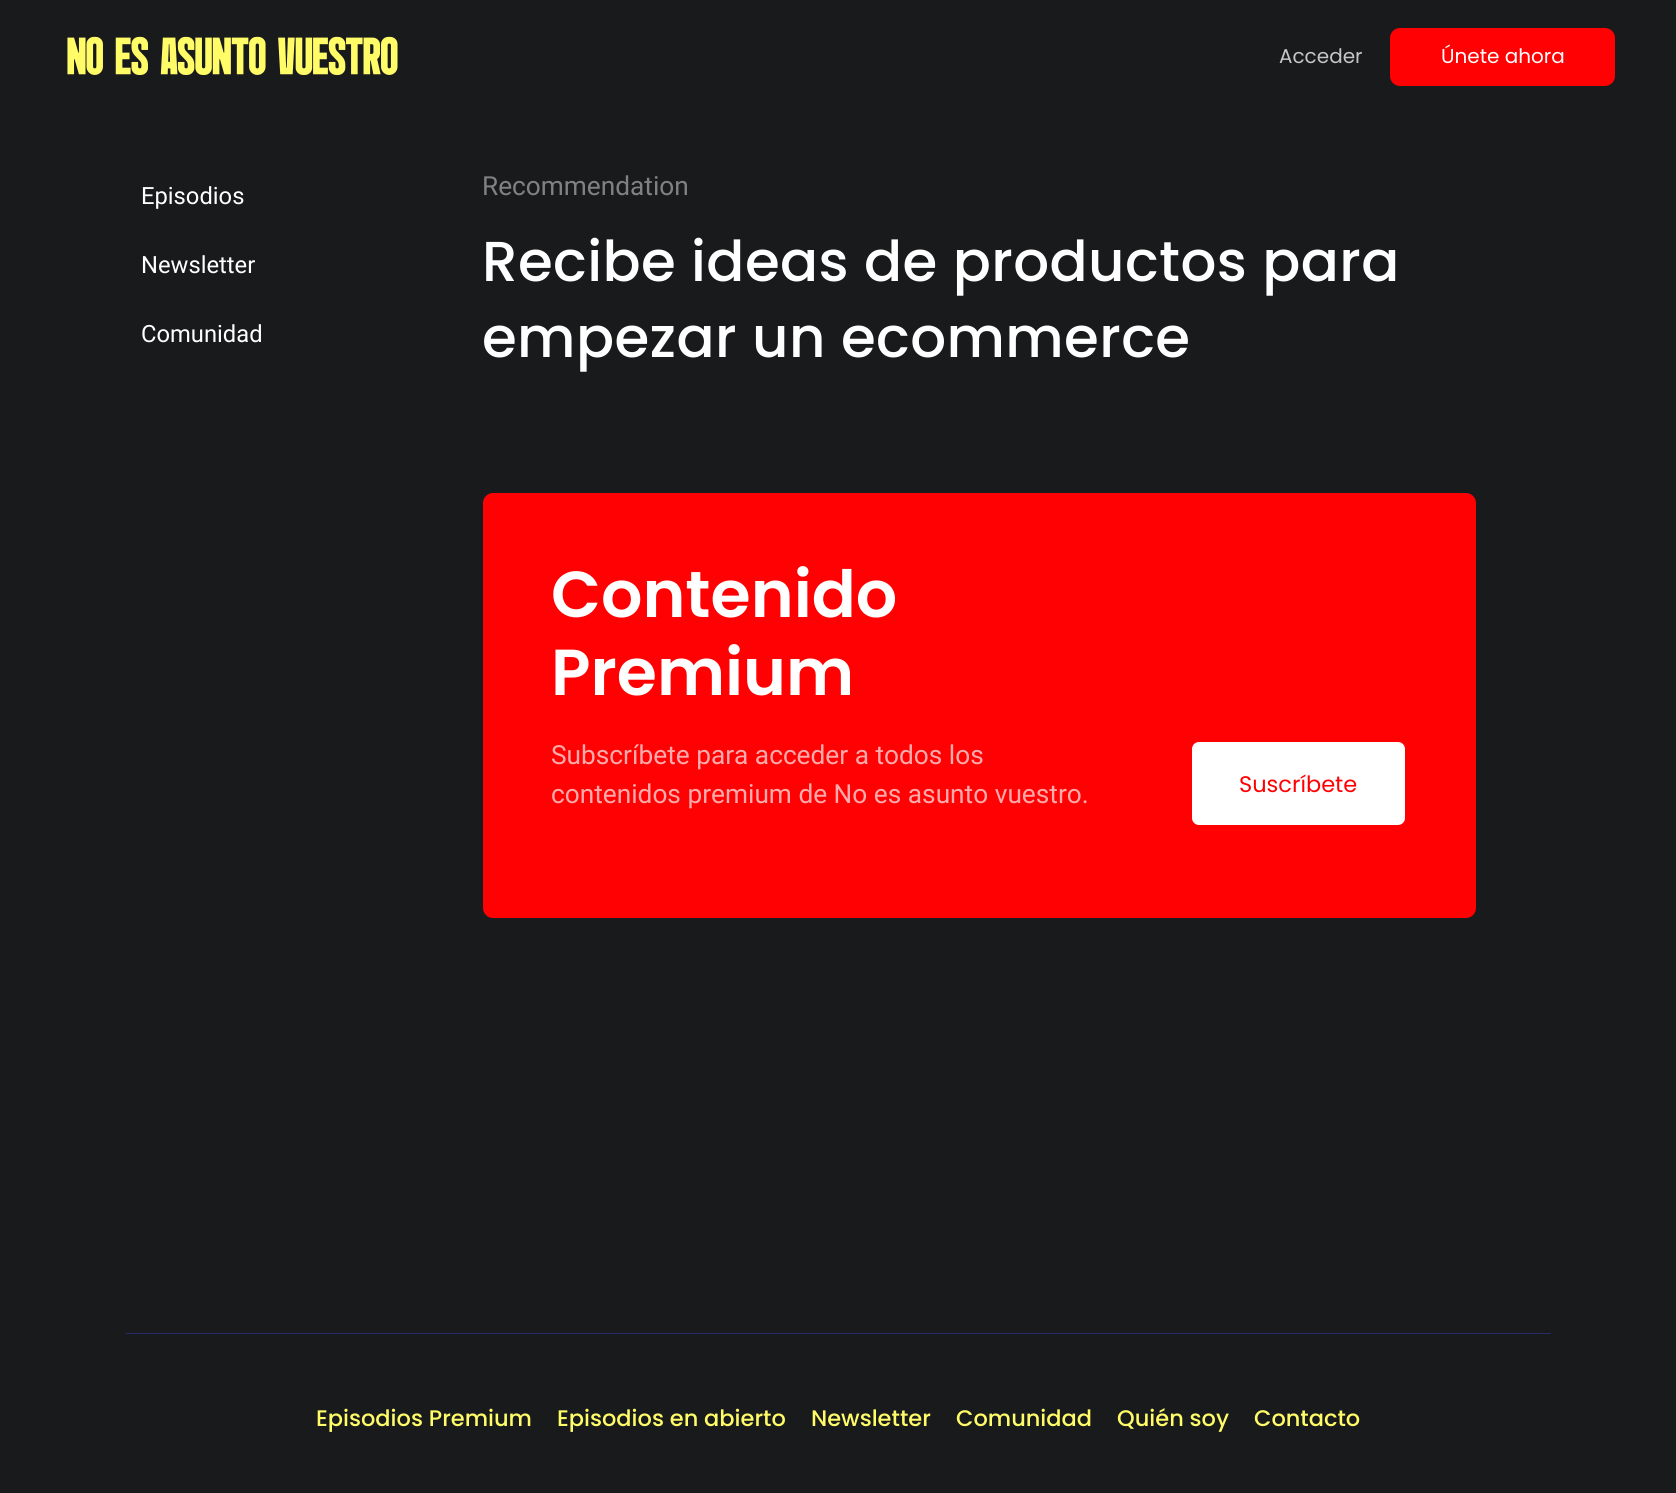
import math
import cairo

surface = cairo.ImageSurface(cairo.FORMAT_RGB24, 1676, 1493)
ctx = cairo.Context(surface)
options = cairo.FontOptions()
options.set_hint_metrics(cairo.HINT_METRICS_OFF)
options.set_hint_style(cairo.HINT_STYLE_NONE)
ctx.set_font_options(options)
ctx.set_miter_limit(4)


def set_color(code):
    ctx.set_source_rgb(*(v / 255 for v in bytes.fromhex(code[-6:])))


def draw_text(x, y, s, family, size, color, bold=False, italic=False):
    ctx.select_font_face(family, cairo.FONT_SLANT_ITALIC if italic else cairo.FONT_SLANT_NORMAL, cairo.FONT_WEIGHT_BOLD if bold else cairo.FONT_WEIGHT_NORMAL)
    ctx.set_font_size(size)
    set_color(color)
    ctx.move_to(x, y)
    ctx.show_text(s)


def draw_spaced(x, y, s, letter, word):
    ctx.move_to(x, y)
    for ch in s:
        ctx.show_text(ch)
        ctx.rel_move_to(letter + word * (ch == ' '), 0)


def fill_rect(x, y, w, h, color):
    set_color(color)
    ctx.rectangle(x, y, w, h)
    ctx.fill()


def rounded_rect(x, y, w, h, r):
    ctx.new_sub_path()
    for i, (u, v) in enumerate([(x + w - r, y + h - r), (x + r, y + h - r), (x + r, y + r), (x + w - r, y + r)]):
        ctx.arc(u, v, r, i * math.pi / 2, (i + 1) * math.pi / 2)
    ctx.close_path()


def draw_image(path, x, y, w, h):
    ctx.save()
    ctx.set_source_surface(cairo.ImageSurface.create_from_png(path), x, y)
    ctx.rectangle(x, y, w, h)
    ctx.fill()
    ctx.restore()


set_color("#181a1c")
ctx.paint()
draw_image("assets/img1.png", 67, 36, 331, 39)
draw_text(1279, 63, "Acceder", "Poppins", 20, "#c5c6c6")
set_color("#ff0102")
rounded_rect(1391.5, 29.5, 222, 55, 8.5)
ctx.fill_preserve()
ctx.set_line_width(3)
ctx.stroke()
draw_text(1441, 63, "Únete ahora", "Poppins", 20, "#ffffff")
draw_text(141, 204, "Episodios", "Roboto", 23.75, "#ffffff")
draw_text(141, 273, "Newsletter", "Roboto", 23.75, "#ffffff")
draw_text(141, 342, "Comunidad", "Roboto", 23.75, "#ffffff")
draw_text(482, 195, "Recommendation", "Roboto", 26.25, "#808182")
ctx.select_font_face("Poppins Medium")
ctx.set_font_size(56.25)
set_color("#ffffff")
draw_spaced(482, 281, "Recibe ideas de productos para", 0.4, 0)
draw_spaced(482, 357, "empezar un ecommerce", 0.4, 0)
set_color("#ff0102")
rounded_rect(483, 493, 993, 425, 10)
ctx.fill()
draw_text(551, 617, "Contenido", "Poppins SemiBold", 65, "#ffffff")
draw_text(551, 695, "Premium", "Poppins SemiBold", 65, "#ffffff")
draw_text(551, 764, "Subscríbete para acceder a todos los", "Roboto", 26.25, "#ffabac")
draw_text(551, 803, "contenidos premium de No es asunto vuestro.", "Roboto", 26.25, "#ffabac")
set_color("#ffffff")
rounded_rect(1190.5, 740.5, 216, 86, 8.5)
ctx.fill_preserve()
set_color("#ff0102")
ctx.stroke()
draw_text(1239, 792, "Suscríbete", "Poppins", 22.5, "#ff0102")
fill_rect(126, 1333, 1425, 1, "#272a6b")
draw_text(316, 1426, "Episodios Premium", "Poppins Medium", 22.5, "#fffc67")
draw_text(557, 1426, "Episodios en abierto", "Poppins Medium", 22.5, "#fffc67")
draw_text(811, 1426, "Newsletter", "Poppins Medium", 22.5, "#fffc67")
draw_text(956, 1426, "Comunidad", "Poppins Medium", 22.5, "#fffc67")
draw_text(1117, 1426, "Quién soy", "Poppins Medium", 22.5, "#fffc67")
draw_text(1254, 1426, "Contacto", "Poppins Medium", 22.5, "#fffc67")
surface.write_to_png("output.png")
